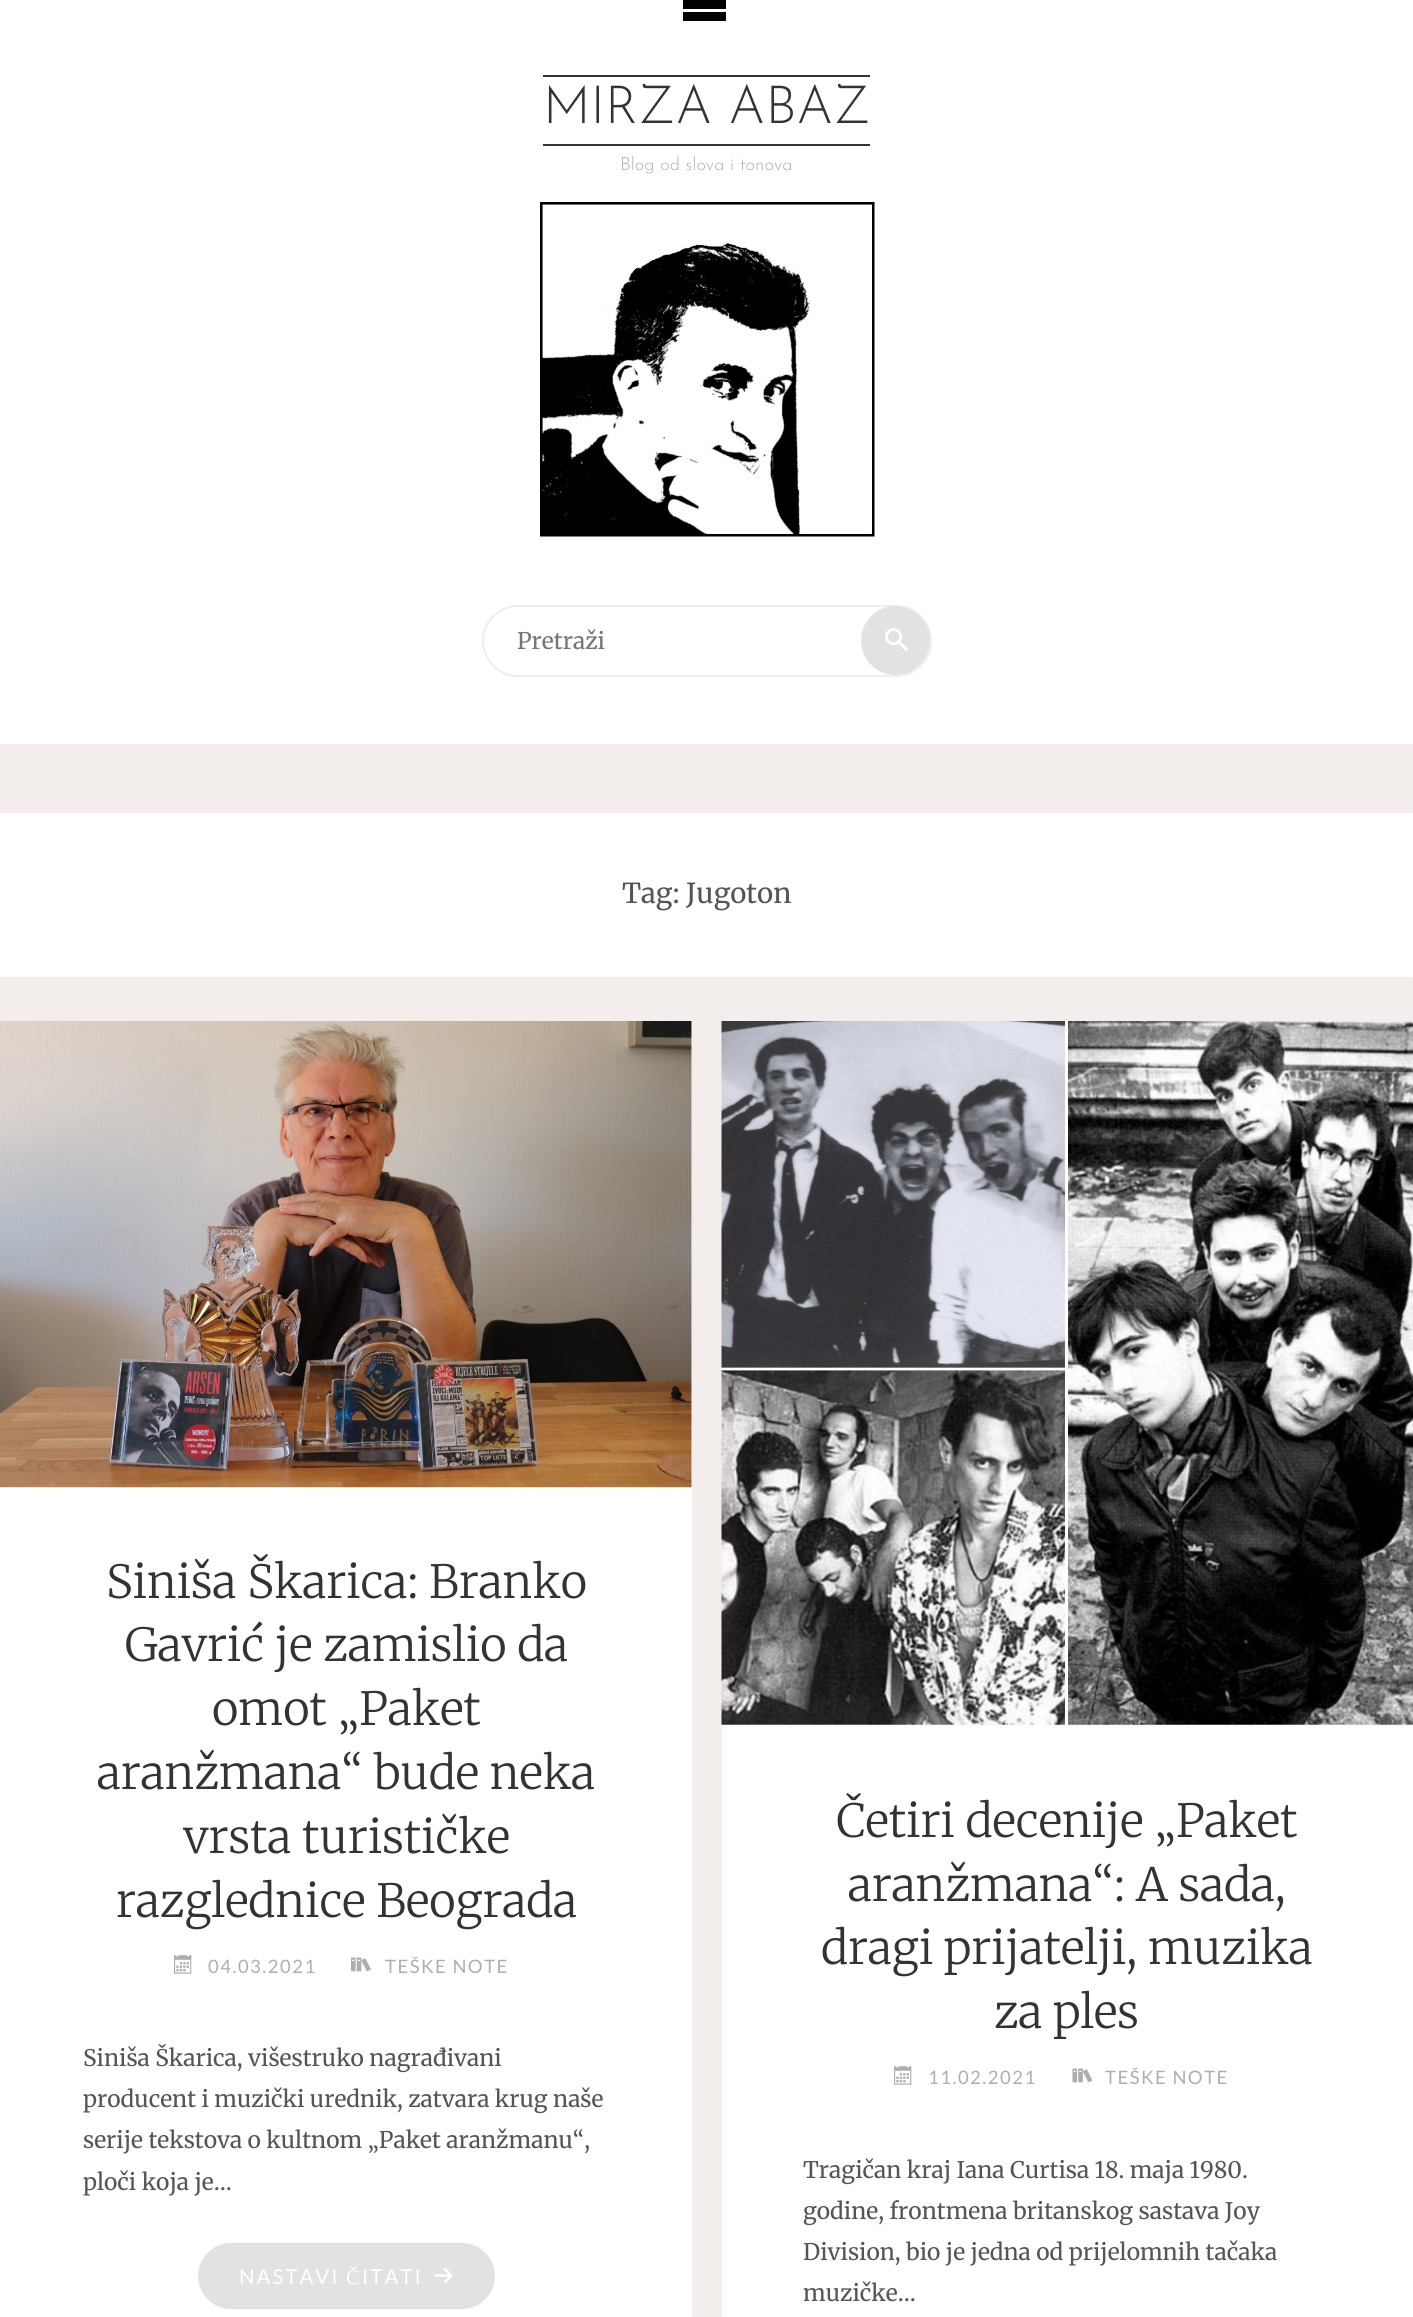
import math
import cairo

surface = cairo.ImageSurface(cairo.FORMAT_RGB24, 1413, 2317)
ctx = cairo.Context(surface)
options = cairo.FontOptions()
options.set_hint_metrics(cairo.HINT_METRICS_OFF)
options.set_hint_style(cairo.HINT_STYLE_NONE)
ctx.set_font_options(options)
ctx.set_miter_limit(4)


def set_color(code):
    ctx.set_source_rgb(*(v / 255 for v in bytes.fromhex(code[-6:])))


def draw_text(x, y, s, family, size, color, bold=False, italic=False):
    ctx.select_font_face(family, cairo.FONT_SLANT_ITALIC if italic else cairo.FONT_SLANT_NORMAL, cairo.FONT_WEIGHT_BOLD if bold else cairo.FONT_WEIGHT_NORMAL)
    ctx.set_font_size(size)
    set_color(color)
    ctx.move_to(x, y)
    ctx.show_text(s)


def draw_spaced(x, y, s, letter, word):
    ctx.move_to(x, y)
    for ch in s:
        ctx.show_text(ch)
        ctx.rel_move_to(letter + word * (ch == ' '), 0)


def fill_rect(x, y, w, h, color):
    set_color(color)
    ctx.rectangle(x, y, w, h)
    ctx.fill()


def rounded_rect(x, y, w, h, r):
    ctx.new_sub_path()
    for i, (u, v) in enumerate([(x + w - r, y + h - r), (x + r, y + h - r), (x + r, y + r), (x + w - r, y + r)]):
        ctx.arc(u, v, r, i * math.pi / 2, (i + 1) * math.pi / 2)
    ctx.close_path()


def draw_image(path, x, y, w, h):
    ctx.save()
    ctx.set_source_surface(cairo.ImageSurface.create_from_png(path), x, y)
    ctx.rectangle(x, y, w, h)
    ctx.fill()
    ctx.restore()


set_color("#f3eeeb")
ctx.paint()
fill_rect(0, 0, 1413, 744, "#ffffff")
set_color("#000000")
ctx.new_path()
ctx.move_to(683, -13)
ctx.line_to(726, -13)
ctx.line_to(726, -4)
ctx.line_to(683, -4)
ctx.close_path()
ctx.move_to(683, -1)
ctx.line_to(726, -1)
ctx.line_to(726, 9)
ctx.line_to(683, 9)
ctx.close_path()
ctx.move_to(683, 12)
ctx.line_to(726, 12)
ctx.line_to(726, 21)
ctx.line_to(683, 21)
ctx.close_path()
ctx.fill()
fill_rect(543, 75, 327, 2, "#333333")
fill_rect(543, 144, 327, 2, "#333333")
draw_text(543, 123, "MIRZA ABAZ", "Josefin Sans Light", 52.5, "#333333")
draw_text(620, 170, "Blog od slova i tonova", "Josefin Sans Light", 18.25, "#aeaeae")
draw_image("assets/img1.png", 540, 202, 335, 335)
rounded_rect(483, 606, 448, 70, 35)
set_color("#eeeeee")
ctx.stroke()
draw_text(517, 649, "Pretraži", "Merriweather", 22.8, "#757575")
set_color("#e2e2e2")
ctx.new_path()
ctx.arc(895.5, 640.5, 34.5, 0, 2 * math.pi)
ctx.fill()
draw_image("assets/img2.png", 885, 628, 23, 23)
fill_rect(0, 813, 1413, 164, "#ffffff")
draw_text(622, 903, "Tag: Jugoton", "Merriweather", 27.5, "#555555")
fill_rect(0, 1022, 692, 1295, "#ffffff")
draw_image("assets/img3.png", 0, 1021, 692, 467)
draw_text(106, 1598, "Siniša Škarica: Branko", "Merriweather Light", 45.6, "#333333")
draw_text(125, 1661, "Gavrić je zamislio da", "Merriweather Light", 45.6, "#333333")
draw_text(212, 1725, "omot „Paket", "Merriweather Light", 45.6, "#333333")
draw_text(97, 1789, "aranžmana“ bude neka", "Merriweather Light", 45.6, "#333333")
draw_text(183, 1853, "vrsta turističke", "Merriweather Light", 45.6, "#333333")
draw_text(116, 1917, "razglednice Beograda", "Merriweather Light", 45.6, "#333333")
draw_image("assets/img4.png", 174, 1955, 18, 19)
ctx.select_font_face("Lato")
ctx.set_font_size(18.5)
set_color("#aeaeae")
draw_spaced(208, 1973, "04.03.2021", 1.5, 0)
draw_image("assets/img5.png", 351, 1957, 20, 15)
draw_spaced(385, 1973, "TEŠKE NOTE", 1.5, 0)
draw_text(83, 2066, "Siniša Škarica, višestruko nagrađivani", "Merriweather", 22.8, "#555555")
draw_text(83, 2107, "producent i muzički urednik, zatvara krug naše", "Merriweather", 22.8, "#555555")
draw_text(83, 2148, "serije tekstova o kultnom „Paket aranžmanu“,", "Merriweather", 22.8, "#555555")
draw_text(83, 2190, "ploči koja je…", "Merriweather", 22.8, "#555555")
set_color("#e2e2e2")
rounded_rect(198, 2243, 297, 66, 33)
ctx.fill()
ctx.select_font_face("Lato")
ctx.set_font_size(20.5)
set_color("#ffffff")
draw_spaced(239, 2284, "NASTAVI", 2, 0)
ctx.select_font_face("Liberation Serif")
draw_spaced(346, 2284, "Č", 2, 0)
ctx.select_font_face("Lato")
draw_spaced(362, 2284, "ITATI", 2, 0)
draw_image("assets/img6.png", 434, 2268, 19, 15)
fill_rect(722, 1727, 691, 590, "#ffffff")
draw_image("assets/img7.png", 721, 1021, 692, 706)
draw_text(836, 1837, "Četiri decenije „Paket", "Merriweather Light", 45.6, "#333333")
draw_text(848, 1901, "aranžmana“: A sada,", "Merriweather Light", 45.6, "#333333")
draw_text(821, 1964, "dragi prijatelji, muzika", "Merriweather Light", 45.6, "#333333")
draw_text(994, 2028, "za ples", "Merriweather Light", 45.6, "#333333")
draw_image("assets/img4.png", 894, 2066, 18, 19)
ctx.select_font_face("Lato")
ctx.set_font_size(18.5)
set_color("#aeaeae")
draw_spaced(928, 2084, "11.02.2021", 1.5, 0)
draw_image("assets/img8.png", 1072, 2068, 21, 15)
draw_spaced(1105, 2084, "TEŠKE NOTE", 1.5, 0)
draw_text(803, 2178, "Tragičan kraj Iana Curtisa 18. maja 1980.", "Merriweather", 22.8, "#555555")
draw_text(803, 2219, "godine, frontmena britanskog sastava Joy", "Merriweather", 22.8, "#555555")
draw_text(803, 2260, "Division, bio je jedna od prijelomnih tačaka", "Merriweather", 22.8, "#555555")
draw_text(803, 2301, "muzičke…", "Merriweather", 22.8, "#555555")
surface.write_to_png("output.png")
